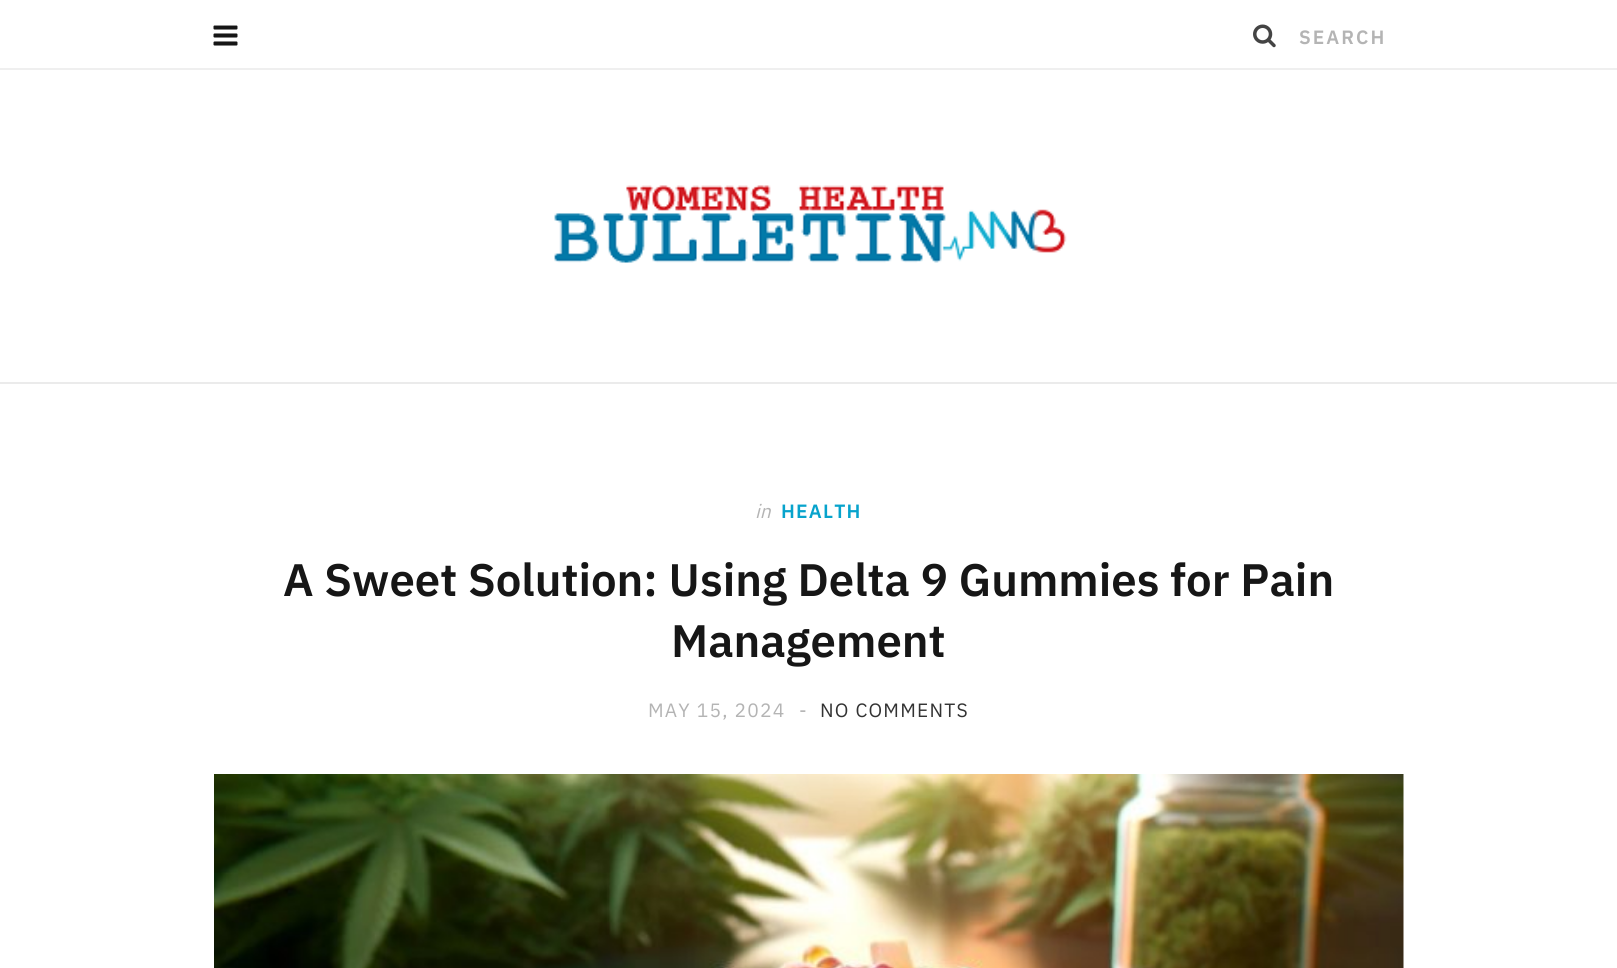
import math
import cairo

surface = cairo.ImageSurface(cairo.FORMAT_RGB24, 1617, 968)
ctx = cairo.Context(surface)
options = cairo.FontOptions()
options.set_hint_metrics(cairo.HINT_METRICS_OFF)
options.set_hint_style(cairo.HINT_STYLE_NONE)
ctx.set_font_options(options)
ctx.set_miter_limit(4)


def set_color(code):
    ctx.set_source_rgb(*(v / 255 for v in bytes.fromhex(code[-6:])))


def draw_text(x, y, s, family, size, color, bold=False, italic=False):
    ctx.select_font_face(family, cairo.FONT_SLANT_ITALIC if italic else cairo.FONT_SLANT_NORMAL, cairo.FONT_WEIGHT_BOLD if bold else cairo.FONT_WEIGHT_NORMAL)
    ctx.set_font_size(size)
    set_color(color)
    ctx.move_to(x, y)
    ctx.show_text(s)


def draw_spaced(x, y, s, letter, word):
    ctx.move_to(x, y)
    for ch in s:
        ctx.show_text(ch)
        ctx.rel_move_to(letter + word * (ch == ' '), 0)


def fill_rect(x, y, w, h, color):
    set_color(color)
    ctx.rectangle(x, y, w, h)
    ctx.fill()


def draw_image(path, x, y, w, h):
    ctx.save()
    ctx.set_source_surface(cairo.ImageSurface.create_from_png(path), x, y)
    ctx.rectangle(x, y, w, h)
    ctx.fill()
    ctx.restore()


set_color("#ffffff")
ctx.paint()
fill_rect(0, 382, 1617, 2, "#ebebeb")
fill_rect(0, 68, 1617, 2, "#efefef")
draw_image("assets/img1.png", 213, 25, 25, 21)
draw_image("assets/img2.png", 1253, 24, 23, 24)
ctx.select_font_face("IBM Plex Sans SemiBold")
ctx.set_font_size(19.25)
set_color("#b4b4b4")
draw_spaced(1299, 44, "SEARCH", 2, 0)
draw_image("assets/img3.png", 554, 185, 513, 78)
draw_text(755, 518, "in", "IBM Plex Sans", 19.25, "#b4b4b4", italic=True)
ctx.select_font_face("IBM Plex Sans SemiBold")
set_color("#07a3cc")
draw_spaced(781, 518, "HEALTH", 1.2, 0)
draw_text(283, 596, "A Sweet Solution: Using Delta 9 Gummies for Pain", "IBM Plex Sans SemiBold", 45.5, "#161616")
draw_text(671, 657, "Management", "IBM Plex Sans SemiBold", 45.5, "#161616")
ctx.select_font_face("IBM Plex Sans")
ctx.set_font_size(19.25)
set_color("#b4b4b4")
draw_spaced(648, 717, "MAY 15, 2024", 1.2, 0)
draw_text(799, 717, "-", "IBM Plex Sans", 19.25, "#b4b4b4")
set_color("#333333")
draw_spaced(820, 717, "NO COMMENTS", 1.2, 0)
draw_image("assets/img4.png", 214, 774, 1190, 194)
surface.write_to_png("output.png")
